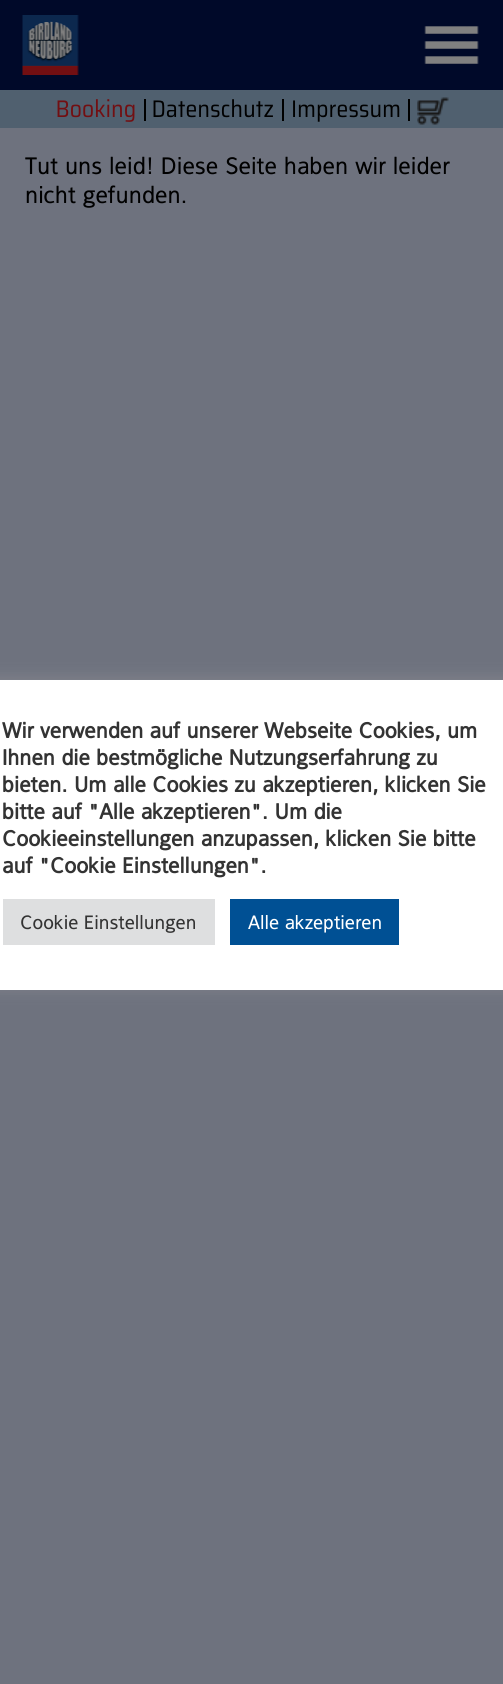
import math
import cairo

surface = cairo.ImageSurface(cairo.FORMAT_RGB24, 503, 1684)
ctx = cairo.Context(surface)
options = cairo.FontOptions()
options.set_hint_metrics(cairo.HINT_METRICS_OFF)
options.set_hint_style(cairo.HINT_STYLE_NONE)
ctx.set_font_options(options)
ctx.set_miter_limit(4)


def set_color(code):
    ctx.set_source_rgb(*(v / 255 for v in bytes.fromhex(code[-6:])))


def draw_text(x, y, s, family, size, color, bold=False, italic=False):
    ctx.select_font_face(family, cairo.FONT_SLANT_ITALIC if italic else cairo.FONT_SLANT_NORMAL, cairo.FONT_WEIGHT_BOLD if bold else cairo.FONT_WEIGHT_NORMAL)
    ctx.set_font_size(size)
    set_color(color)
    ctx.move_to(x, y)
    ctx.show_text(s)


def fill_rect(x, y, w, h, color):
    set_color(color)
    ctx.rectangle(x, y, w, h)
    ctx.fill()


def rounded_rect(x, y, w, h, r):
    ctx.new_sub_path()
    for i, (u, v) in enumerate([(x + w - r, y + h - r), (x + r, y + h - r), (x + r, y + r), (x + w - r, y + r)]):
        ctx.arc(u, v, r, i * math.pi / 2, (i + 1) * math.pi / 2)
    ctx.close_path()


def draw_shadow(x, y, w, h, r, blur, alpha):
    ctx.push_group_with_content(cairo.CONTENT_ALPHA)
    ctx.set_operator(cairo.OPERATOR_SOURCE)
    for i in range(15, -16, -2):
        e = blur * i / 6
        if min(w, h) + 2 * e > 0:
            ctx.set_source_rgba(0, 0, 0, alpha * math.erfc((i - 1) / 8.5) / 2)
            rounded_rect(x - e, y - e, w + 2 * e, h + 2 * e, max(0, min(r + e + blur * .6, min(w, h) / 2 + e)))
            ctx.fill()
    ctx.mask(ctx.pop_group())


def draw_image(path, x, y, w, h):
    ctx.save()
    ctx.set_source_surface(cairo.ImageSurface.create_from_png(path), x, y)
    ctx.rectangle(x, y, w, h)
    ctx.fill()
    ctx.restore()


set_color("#6e727e")
ctx.paint()
fill_rect(0, 0, 503, 90, "#000929")
draw_image("assets/img1.png", 22, 15, 57, 60)
draw_image("assets/img2.png", 424, 26, 55, 38)
fill_rect(0, 90, 503, 38, "#50606f")
draw_image("assets/img3.png", 57, 99, 78, 23)
fill_rect(144, 99, 2, 22, "#000000")
draw_image("assets/img4.png", 153, 99, 120, 19)
fill_rect(282, 99, 2, 22, "#000000")
draw_image("assets/img5.png", 293, 100, 107, 22)
fill_rect(408, 99, 2, 22, "#000000")
draw_image("assets/img6.png", 417, 97, 32, 28)
draw_text(25, 174, "Tut uns leid! Diese Seite haben wir leider", "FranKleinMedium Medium", 24, "#000000")
draw_text(25, 203, "nicht gefunden.", "FranKleinMedium Medium", 24, "#000000")
set_color("#acabab")
draw_shadow(-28, 678, 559, 311, 5, 7.5, 0.3)
fill_rect(0, 680, 503, 310, "#ffffff")
draw_text(2, 738, "Wir verwenden auf unserer Webseite Cookies, um", "FranKleinMedium", 22, "#333333", bold=True)
draw_text(2, 765, "Ihnen die bestmögliche Nutzungserfahrung zu", "FranKleinMedium", 22, "#333333", bold=True)
draw_text(2, 792, "bieten. Um alle Cookies zu akzeptieren, klicken Sie", "FranKleinMedium", 22, "#333333", bold=True)
draw_text(2, 819, "bitte auf \"Alle akzeptieren\". Um die", "FranKleinMedium", 22, "#333333", bold=True)
draw_text(2, 846, "Cookieeinstellungen anzupassen, klicken Sie bitte", "FranKleinMedium", 22, "#333333", bold=True)
draw_text(2, 873, "auf \"Cookie Einstellungen\".", "FranKleinMedium", 22, "#333333", bold=True)
fill_rect(3, 899, 212, 46, "#dedfe0")
draw_text(20, 929, "Cookie Einstellungen", "FranKleinMedium Medium", 19.5, "#333333")
fill_rect(230, 899, 169, 46, "#005094")
draw_text(248, 929, "Alle akzeptieren", "FranKleinMedium Medium", 19.5, "#ffffff")
surface.write_to_png("output.png")
